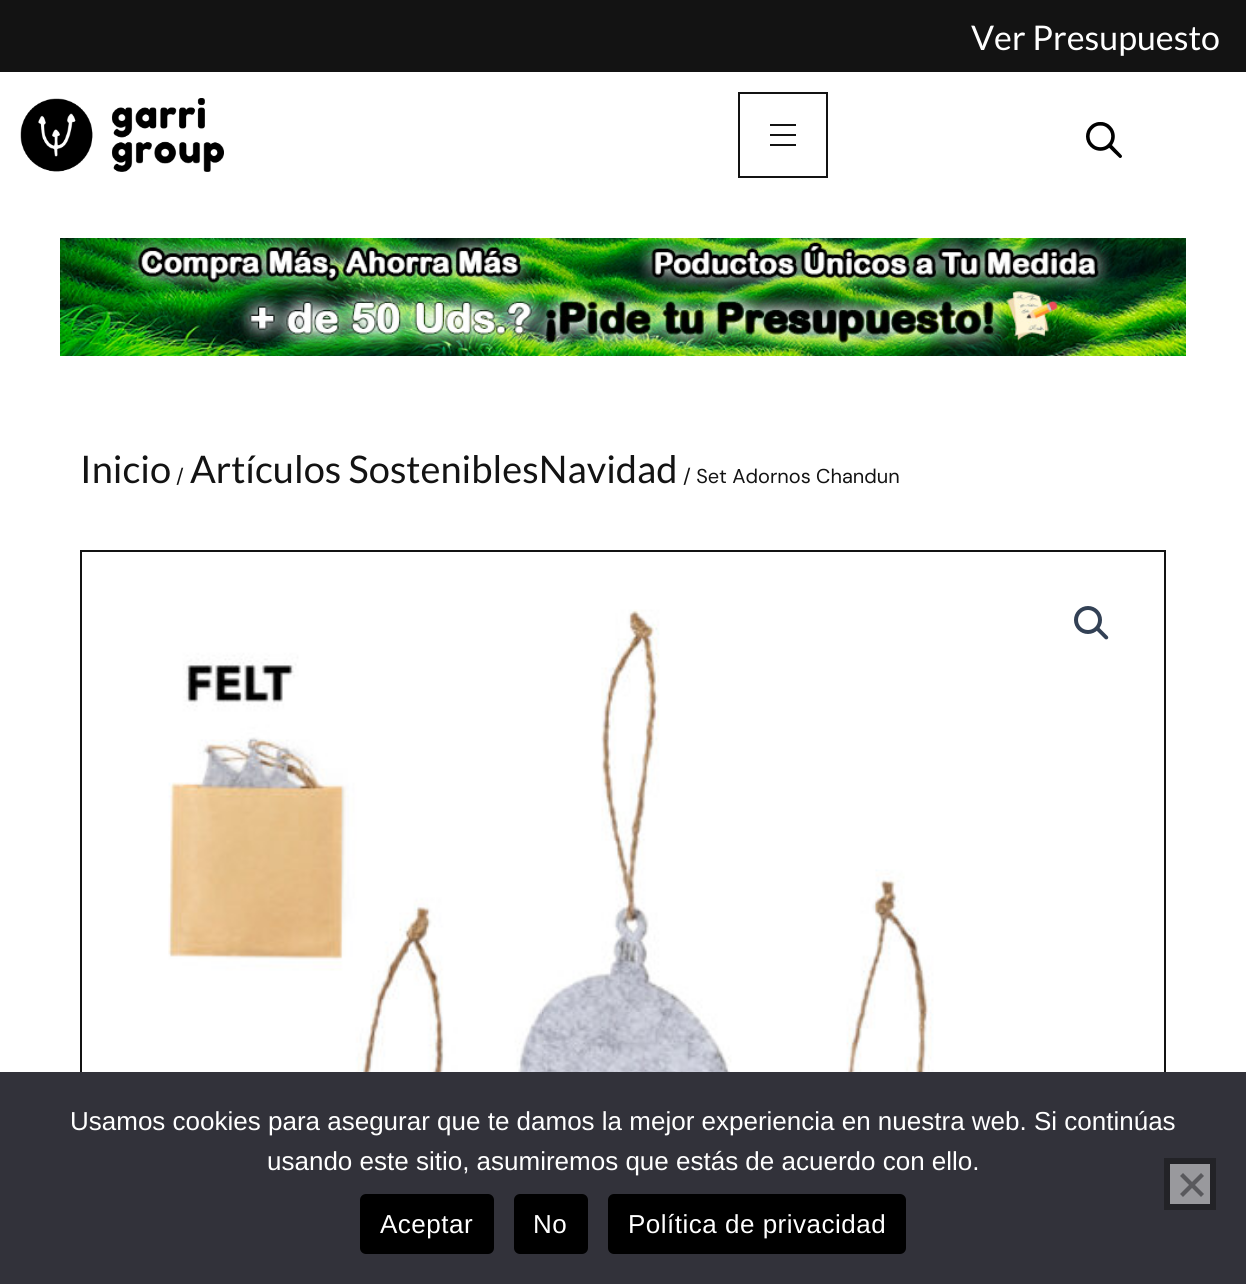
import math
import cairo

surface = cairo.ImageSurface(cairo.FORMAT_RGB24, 1246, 1284)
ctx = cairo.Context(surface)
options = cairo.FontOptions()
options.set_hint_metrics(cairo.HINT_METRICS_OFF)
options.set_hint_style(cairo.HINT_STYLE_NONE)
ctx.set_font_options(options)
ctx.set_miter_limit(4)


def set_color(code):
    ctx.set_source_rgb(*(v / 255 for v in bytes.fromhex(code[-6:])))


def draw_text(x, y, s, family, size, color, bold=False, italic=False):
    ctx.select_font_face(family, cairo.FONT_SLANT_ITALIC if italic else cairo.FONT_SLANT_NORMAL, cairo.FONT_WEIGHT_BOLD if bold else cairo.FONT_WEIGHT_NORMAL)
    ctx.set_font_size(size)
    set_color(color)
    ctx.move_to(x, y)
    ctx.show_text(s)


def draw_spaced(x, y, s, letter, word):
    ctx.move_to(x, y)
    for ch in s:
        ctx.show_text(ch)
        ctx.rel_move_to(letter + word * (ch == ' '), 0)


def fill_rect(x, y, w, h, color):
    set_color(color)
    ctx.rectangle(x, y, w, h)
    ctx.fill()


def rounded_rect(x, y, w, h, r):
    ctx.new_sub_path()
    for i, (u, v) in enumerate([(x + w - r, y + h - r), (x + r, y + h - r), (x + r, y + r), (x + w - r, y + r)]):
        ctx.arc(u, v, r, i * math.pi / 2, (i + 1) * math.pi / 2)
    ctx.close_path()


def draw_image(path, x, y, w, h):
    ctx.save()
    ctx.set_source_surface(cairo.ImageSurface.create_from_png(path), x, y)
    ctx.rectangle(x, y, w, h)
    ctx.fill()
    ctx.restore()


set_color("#ffffff")
ctx.paint()
fill_rect(0, 0, 1246, 72, "#131313")
draw_text(971, 50, "Ver Presupuesto", "Lato", 34, "#ffffff")
draw_image("assets/img1.png", 20, 98, 204, 74)
ctx.rectangle(739, 93, 88, 84)
set_color("#131313")
ctx.stroke()
fill_rect(770, 124, 26, 2, "#131313")
fill_rect(770, 134, 26, 2, "#131313")
fill_rect(770, 144, 26, 2, "#131313")
draw_image("assets/img2.png", 1086, 122, 36, 36)
draw_image("assets/img3.png", 60, 238, 1126, 118)
draw_text(80, 483, "Inicio", "Lato", 38, "#131313")
draw_text(176, 483, "/", "DM Sans", 20, "#131313")
draw_text(190, 483, "Artículos SosteniblesNavidad", "Lato", 38, "#131313")
draw_text(683, 483, "/ Set Adornos Chandun", "DM Sans", 20, "#131313")
ctx.rectangle(81, 551, 1084, 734)
ctx.stroke()
draw_image("assets/img4.png", 168, 609, 794, 463)
ctx.arc(1088, 620, 12, 0, 2 * math.pi)
set_color("#334155")
ctx.set_line_width(4)
ctx.stroke()
ctx.new_path()
ctx.move_to(1096.5, 627.5)
ctx.curve_to(1097, 626.5, 1098.5, 626.5, 1099, 627.5)
ctx.line_to(1107.5, 636)
ctx.curve_to(1108.5, 637, 1108.5, 638, 1107.5, 639)
ctx.curve_to(1107, 639.5, 1105.5, 639.5, 1105, 639)
ctx.line_to(1096.5, 630.5)
ctx.curve_to(1095.5, 629.5, 1095.5, 628.5, 1096.5, 627.5)
ctx.close_path()
ctx.fill()
fill_rect(0, 1072, 1246, 212, "#32323a")
draw_text(70, 1130, "Usamos cookies para asegurar que te damos la mejor experiencia en nuestra web. Si continúas", "Liberation Sans", 26, "#ffffff")
draw_text(267, 1170, "usando este sitio, asumiremos que estás de acuerdo con ello.", "Liberation Sans", 26, "#ffffff")
set_color("#99999d")
ctx.rectangle(1167, 1161, 46, 46)
ctx.fill_preserve()
set_color("#232327")
ctx.set_line_width(6)
ctx.stroke()
set_color("#59595d")
ctx.new_path()
ctx.move_to(1201, 1173)
ctx.line_to(1204, 1176)
ctx.line_to(1183, 1197)
ctx.line_to(1180, 1194)
ctx.close_path()
ctx.fill()
ctx.new_path()
ctx.move_to(1180, 1176)
ctx.line_to(1183, 1173)
ctx.line_to(1204, 1194)
ctx.line_to(1201, 1197)
ctx.close_path()
ctx.fill()
set_color("#000000")
rounded_rect(360, 1194, 134, 60, 6)
ctx.fill()
set_color("#ffffff")
draw_spaced(380, 1233, "Aceptar", 0.5, 0)
set_color("#000000")
rounded_rect(514, 1194, 74, 60, 6)
ctx.fill()
set_color("#ffffff")
draw_spaced(533, 1233, "No", 0.5, 0)
set_color("#000000")
rounded_rect(608, 1194, 298, 60, 6)
ctx.fill()
set_color("#ffffff")
draw_spaced(628, 1233, "Política de privacidad", 0.5, 0)
surface.write_to_png("output.png")
